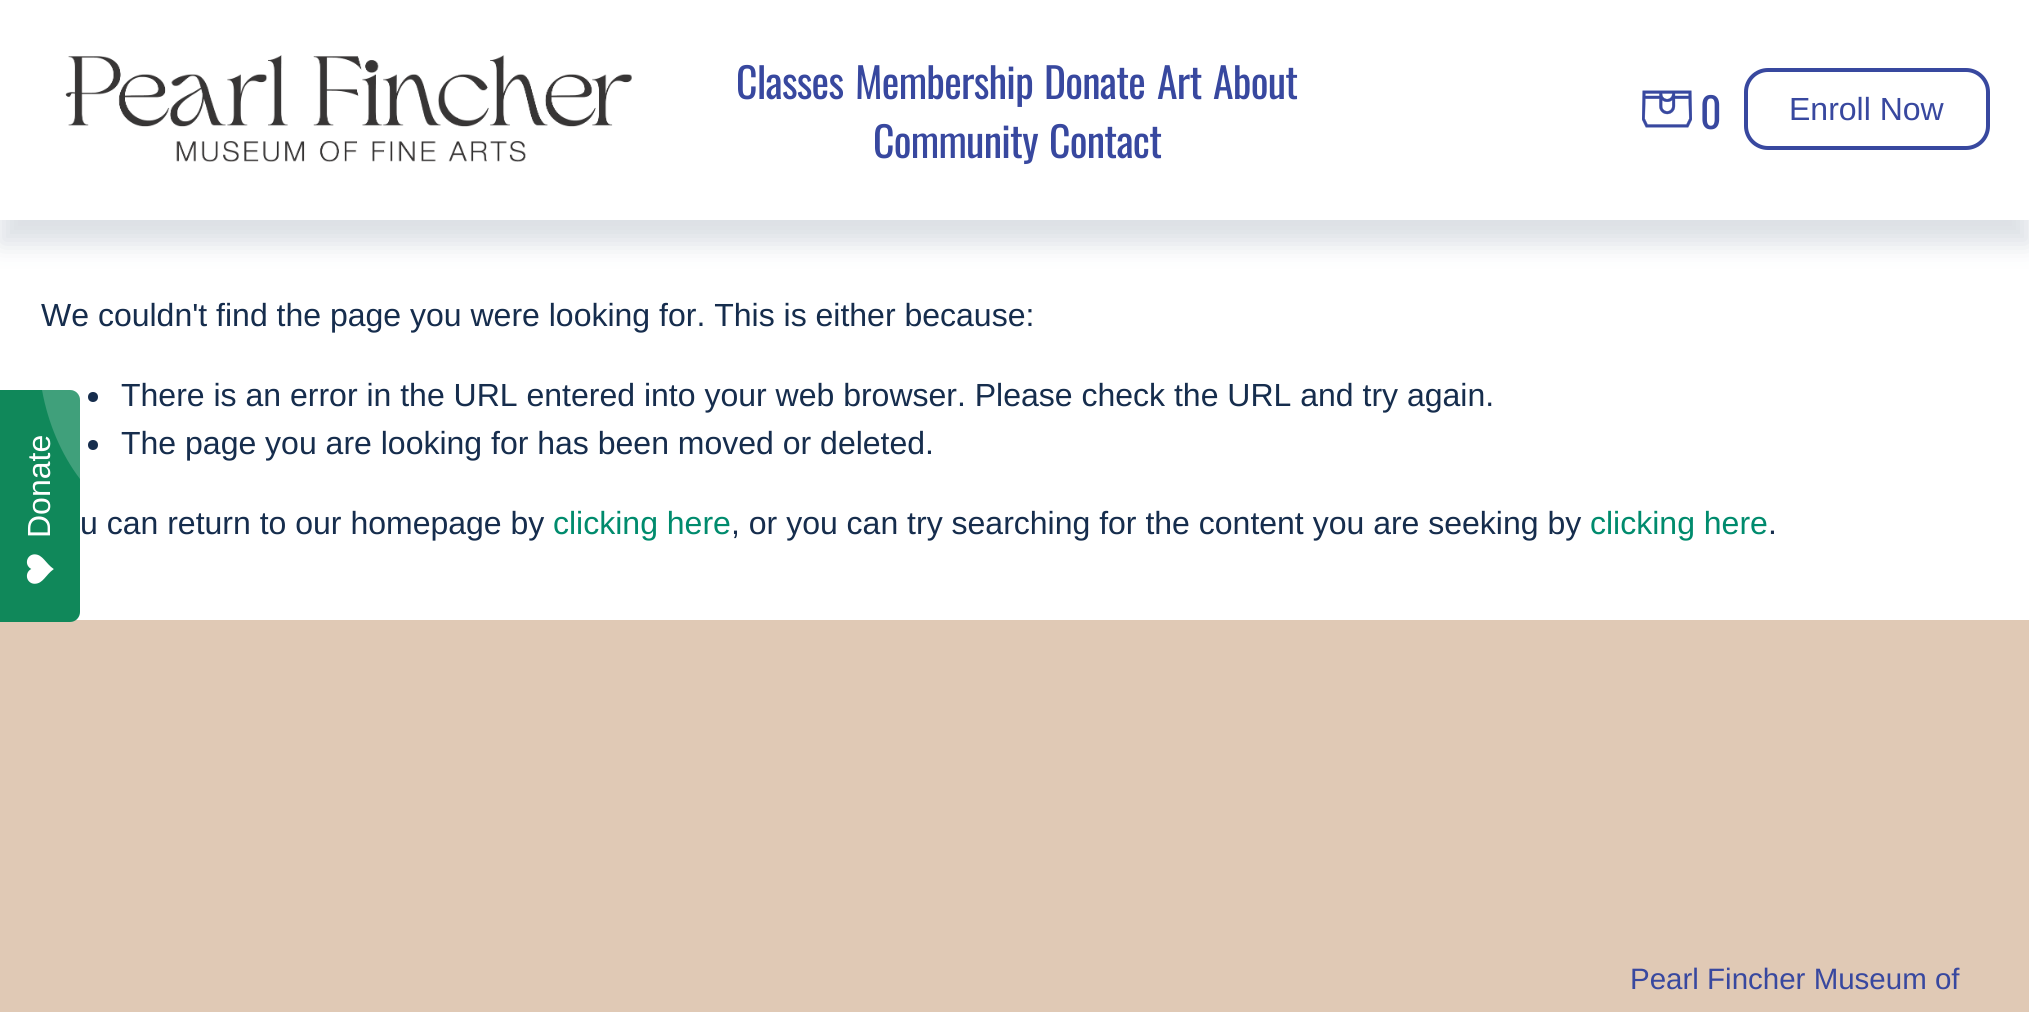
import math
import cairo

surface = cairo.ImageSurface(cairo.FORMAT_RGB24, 2029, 1012)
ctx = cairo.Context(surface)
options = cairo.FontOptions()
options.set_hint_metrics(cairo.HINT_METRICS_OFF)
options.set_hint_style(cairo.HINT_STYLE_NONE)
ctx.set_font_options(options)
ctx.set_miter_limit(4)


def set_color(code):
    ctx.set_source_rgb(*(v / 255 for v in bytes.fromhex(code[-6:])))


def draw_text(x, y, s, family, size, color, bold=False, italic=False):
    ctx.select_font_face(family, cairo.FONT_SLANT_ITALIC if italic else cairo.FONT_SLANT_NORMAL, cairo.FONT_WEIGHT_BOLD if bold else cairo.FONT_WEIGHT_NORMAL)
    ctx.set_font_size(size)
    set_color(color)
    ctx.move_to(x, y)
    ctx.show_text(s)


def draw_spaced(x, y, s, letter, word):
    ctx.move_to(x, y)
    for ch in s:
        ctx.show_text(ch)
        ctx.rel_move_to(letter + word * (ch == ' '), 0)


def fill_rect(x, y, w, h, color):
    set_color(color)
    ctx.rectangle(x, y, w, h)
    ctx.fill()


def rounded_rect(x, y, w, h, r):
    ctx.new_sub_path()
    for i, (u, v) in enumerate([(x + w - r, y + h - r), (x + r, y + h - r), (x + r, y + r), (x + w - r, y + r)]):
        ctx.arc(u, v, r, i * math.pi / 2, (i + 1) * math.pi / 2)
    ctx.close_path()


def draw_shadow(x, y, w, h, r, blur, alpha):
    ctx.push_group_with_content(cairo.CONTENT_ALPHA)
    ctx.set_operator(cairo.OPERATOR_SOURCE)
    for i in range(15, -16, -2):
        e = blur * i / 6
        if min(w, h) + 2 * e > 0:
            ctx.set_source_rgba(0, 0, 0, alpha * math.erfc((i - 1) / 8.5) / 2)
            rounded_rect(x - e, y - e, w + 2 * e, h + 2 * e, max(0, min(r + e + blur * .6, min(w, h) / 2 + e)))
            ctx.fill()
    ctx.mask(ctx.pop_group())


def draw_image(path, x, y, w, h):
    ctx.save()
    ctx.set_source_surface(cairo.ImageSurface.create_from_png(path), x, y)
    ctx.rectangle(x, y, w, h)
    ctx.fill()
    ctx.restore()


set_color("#ffffff")
ctx.paint()
fill_rect(0, 620, 2029, 392, "#e0c9b5")
set_color("#10885a")
ctx.new_path()
ctx.move_to(0, 622)
ctx.line_to(0, 390)
ctx.line_to(70, 390)
ctx.curve_to(76, 390, 80, 395, 80, 400)
ctx.line_to(80, 612)
ctx.curve_to(80, 617, 76, 622, 70, 622)
ctx.close_path()
ctx.fill()
ctx.save()
ctx.translate(50, 538)
ctx.rotate(-90 * math.pi / 180)
draw_text(0, 0, "Donate", "Liberation Sans", 32, "#ffffff")
ctx.restore()
ctx.set_source_rgba(1, 1, 1, 0.2)
ctx.new_path()
ctx.move_to(80, 479)
ctx.curve_to(61, 454, 48, 423, 42, 390)
ctx.line_to(70, 390)
ctx.curve_to(76, 390, 80, 395, 80, 400)
ctx.close_path()
ctx.fill()
draw_image("assets/img1.png", 26, 554, 28, 30)
ctx.save()
ctx.rectangle(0, 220, 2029, 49)
ctx.clip()
set_color("#dce0e5")
draw_shadow(0, 24, 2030, 220, 0, 12, 1)
ctx.restore()
draw_image("assets/img2.png", 65, 55, 567, 107)
ctx.select_font_face("Oswald")
ctx.set_font_size(41.75)
set_color("#38489f")
draw_spaced(736, 99, "Classes", -0.75, 0)
draw_spaced(855, 99, "Membership", -0.75, 0)
draw_spaced(1044, 99, "Donate", -0.75, 0)
draw_spaced(1157, 99, "Art", -0.75, 0)
draw_spaced(1213, 99, "About", -0.75, 0)
draw_spaced(873, 158, "Community", -0.75, 0)
draw_spaced(1049, 158, "Contact", -0.75, 0)
draw_image("assets/img3.png", 1642, 90, 50, 38)
draw_spaced(1700, 129, "0", -0.75, 0)
rounded_rect(1746, 70, 242, 78, 22)
ctx.set_line_width(4)
ctx.stroke()
draw_text(1789, 120, "Enroll Now", "Arimo", 32, "#38489f")
draw_text(41, 326, "We couldn't find the page you were looking for. This is either because:", "Arimo", 32, "#162d4d")
ctx.new_path()
ctx.arc(93, 397, 5, 0, 2 * math.pi)
ctx.fill()
draw_text(121, 406, "There is an error in the URL entered into your web browser. Please check the URL and try again.", "Arimo", 32, "#162d4d")
ctx.new_path()
ctx.arc(93, 445, 5, 0, 2 * math.pi)
ctx.fill()
draw_text(121, 454, "The page you are looking for has been moved or deleted.", "Arimo", 32, "#162d4d")
draw_text(80, 534, "u can return to our homepage by", "Arimo", 32, "#162d4d")
draw_text(553, 534, "clicking here", "Arimo", 32, "#008b6d")
draw_text(731, 534, ", or you can try searching for the content you are seeking by", "Arimo", 32, "#162d4d")
draw_text(1590, 534, "clicking here", "Arimo", 32, "#008b6d")
draw_text(1768, 534, ".", "Arimo", 32, "#162d4d")
draw_text(1630, 989, "Pearl Fincher Museum of", "Arimo", 29.5, "#38489f")
surface.write_to_png("output.png")
